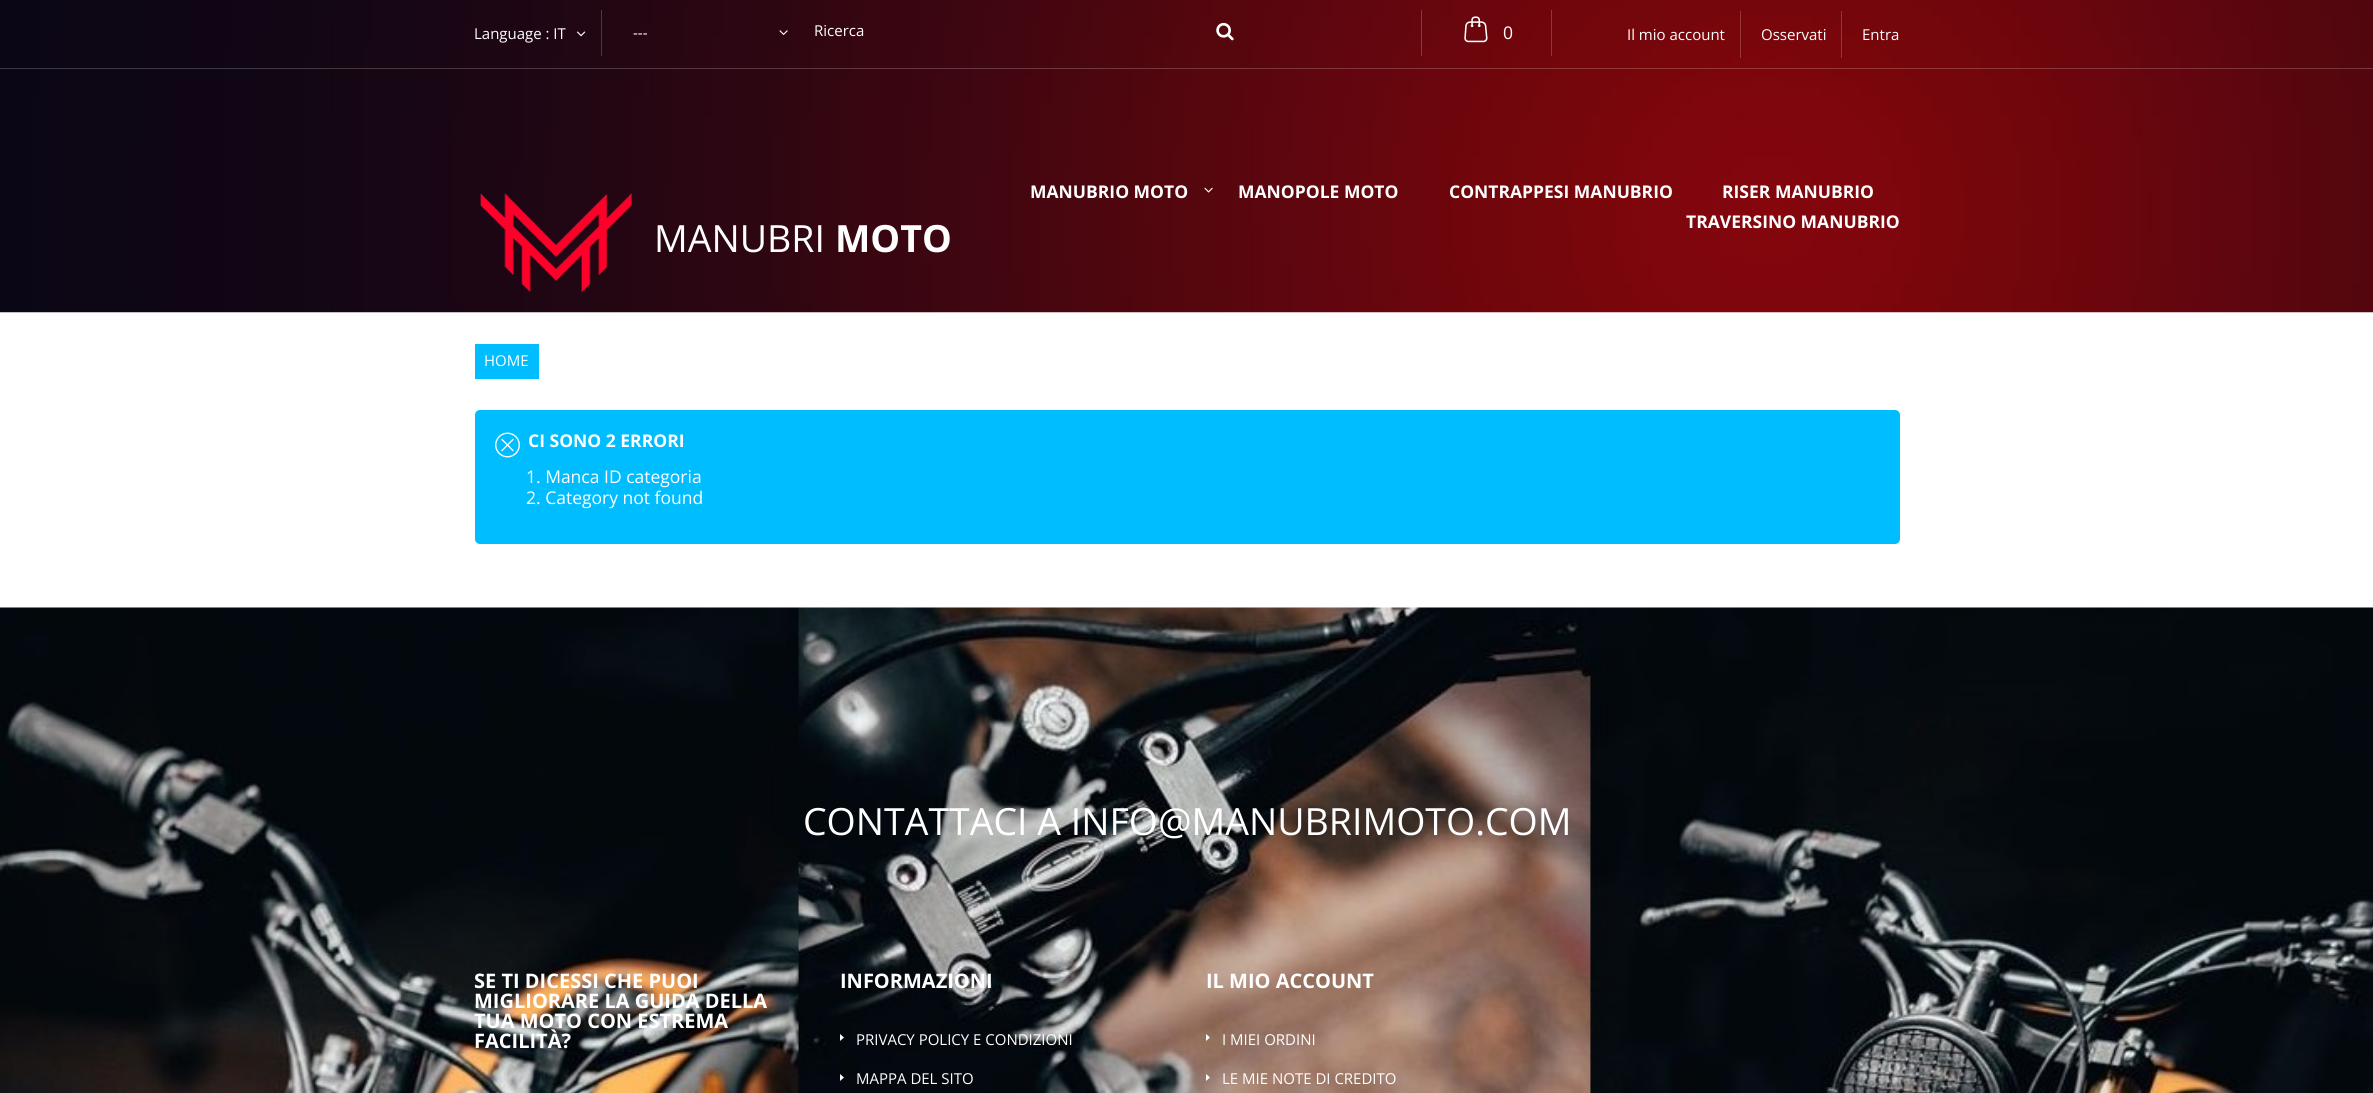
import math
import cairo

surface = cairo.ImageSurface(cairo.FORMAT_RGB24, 2373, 1093)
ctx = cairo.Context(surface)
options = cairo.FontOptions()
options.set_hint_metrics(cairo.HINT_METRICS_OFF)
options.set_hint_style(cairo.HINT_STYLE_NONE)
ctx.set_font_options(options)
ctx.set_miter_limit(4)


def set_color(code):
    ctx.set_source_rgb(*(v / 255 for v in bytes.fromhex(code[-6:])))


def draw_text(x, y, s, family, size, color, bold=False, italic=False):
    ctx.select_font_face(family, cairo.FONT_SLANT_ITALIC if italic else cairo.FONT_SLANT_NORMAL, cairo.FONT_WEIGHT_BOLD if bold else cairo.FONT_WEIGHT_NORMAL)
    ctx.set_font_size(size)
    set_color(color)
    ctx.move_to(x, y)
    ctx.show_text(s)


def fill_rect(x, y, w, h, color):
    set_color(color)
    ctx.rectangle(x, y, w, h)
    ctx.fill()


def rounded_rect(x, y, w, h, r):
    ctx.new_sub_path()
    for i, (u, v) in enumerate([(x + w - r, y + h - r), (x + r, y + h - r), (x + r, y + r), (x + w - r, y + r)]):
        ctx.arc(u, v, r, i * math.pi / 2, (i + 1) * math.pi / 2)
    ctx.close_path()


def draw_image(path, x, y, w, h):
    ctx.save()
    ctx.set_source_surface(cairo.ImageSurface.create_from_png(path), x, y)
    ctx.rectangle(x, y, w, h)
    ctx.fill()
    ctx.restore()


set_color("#ffffff")
ctx.paint()
draw_image("assets/img7.png", 0, 0, 2373, 313)
fill_rect(601, 10, 1, 46, "#4e3842")
draw_text(474, 39, "Language : IT", "Open Sans", 15, "#ffffff")
draw_image("assets/img1.png", 576, 31, 10, 6)
draw_text(633, 38, "---", "Open Sans", 15, "#ffffff")
draw_image("assets/img2.png", 779, 30, 9, 5)
draw_text(814, 36, "Ricerca", "Open Sans", 15, "#ffffff")
draw_image("assets/img3.png", 1216, 22, 18, 19)
fill_rect(1551, 10, 1, 46, "#8d383c")
fill_rect(1421, 10, 1, 46, "#85383d")
draw_image("assets/img4.png", 1464, 16, 24, 27)
draw_text(1503, 39, "0", "Open Sans", 17.5, "#ffffff")
ctx.set_source_rgba(1, 1, 1, 0.2)
ctx.rectangle(1740, 11, 1, 47)
ctx.fill()
draw_text(1627, 40, "Il mio account", "Open Sans", 15, "#ffffff")
ctx.set_source_rgba(1, 1, 1, 0.2)
ctx.rectangle(1841, 11, 1, 47)
ctx.fill()
draw_text(1761, 40, "Osservati", "Open Sans", 15, "#ffffff")
draw_text(1862, 40, "Entra", "Open Sans", 15, "#ffffff")
ctx.set_source_rgba(1, 1, 1, 0.2)
ctx.rectangle(0, 68, 2373, 1)
ctx.fill()
draw_text(1030, 198, "MANUBRIO MOTO", "Open Sans", 17.5, "#ffffff", bold=True)
draw_image("assets/img5.png", 1204, 187, 9, 6)
draw_text(1238, 198, "MANOPOLE MOTO", "Open Sans", 17.5, "#ffffff", bold=True)
draw_text(1449, 198, "CONTRAPPESI MANUBRIO", "Open Sans", 17.5, "#ffffff", bold=True)
draw_text(1722, 198, "RISER MANUBRIO", "Open Sans", 17.5, "#ffffff", bold=True)
draw_text(1686, 228, "TRAVERSINO MANUBRIO", "Open Sans", 17.5, "#ffffff", bold=True)
draw_image("assets/img6.png", 480, 193, 152, 99)
draw_text(654, 252, "MANUBRI", "Open Sans", 37.5, "#ffffff")
draw_text(835, 252, "MOTO", "Open Sans", 37.5, "#ffffff", bold=True)
fill_rect(475, 344, 64, 35, "#00bdff")
draw_text(484, 366, "HOME", "Open Sans", 15, "#ffffff")
set_color("#00bdff")
rounded_rect(475, 410, 1425, 134, 5)
ctx.fill()
draw_image("assets/img8.png", 495, 432, 25, 26)
draw_text(528, 447, "CI SONO 2 ERRORI", "Open Sans", 17.5, "#ffffff", bold=True)
draw_text(526, 483, "1. Manca ID categoria", "Open Sans", 17.5, "#ffffff")
draw_text(526, 504, "2. Category not found", "Open Sans", 17.5, "#ffffff")
draw_image("assets/img9.png", 0, 607, 2373, 486)
draw_text(803, 835, "CONTATTACI A INFO@MANUBRIMOTO.COM", "Open Sans", 37.5, "#ffffff")
draw_text(474, 988, "SE TI DICESSI CHE PUOI", "Open Sans", 20, "#ffffff", bold=True)
draw_text(474, 1008, "MIGLIORARE LA GUIDA DELLA", "Open Sans", 20, "#ffffff", bold=True)
draw_text(474, 1028, "TUA MOTO CON ESTREMA", "Open Sans", 20, "#ffffff", bold=True)
draw_text(474, 1048, "FACILITÀ?", "Open Sans", 20, "#ffffff", bold=True)
draw_text(840, 988, "INFORMAZIONI", "Open Sans", 20, "#ffffff", bold=True)
ctx.new_path()
ctx.move_to(840, 1041)
ctx.line_to(840, 1034)
ctx.line_to(844, 1037.5)
ctx.close_path()
ctx.fill()
draw_text(856, 1045, "PRIVACY POLICY E CONDIZIONI", "Open Sans", 15, "#ffffff")
ctx.new_path()
ctx.move_to(840, 1081)
ctx.line_to(840, 1074)
ctx.line_to(844, 1077.5)
ctx.close_path()
ctx.fill()
draw_text(856, 1084, "MAPPA DEL SITO", "Open Sans", 15, "#ffffff")
draw_text(1206, 988, "IL MIO ACCOUNT", "Open Sans", 20, "#ffffff", bold=True)
ctx.new_path()
ctx.move_to(1206, 1041)
ctx.line_to(1206, 1034)
ctx.line_to(1210, 1037.5)
ctx.close_path()
ctx.fill()
draw_text(1222, 1045, "I MIEI ORDINI", "Open Sans", 15, "#ffffff")
ctx.new_path()
ctx.move_to(1206, 1081)
ctx.line_to(1206, 1074)
ctx.line_to(1210, 1077.5)
ctx.close_path()
ctx.fill()
draw_text(1222, 1084, "LE MIE NOTE DI CREDITO", "Open Sans", 15, "#ffffff")
surface.write_to_png("output.png")
